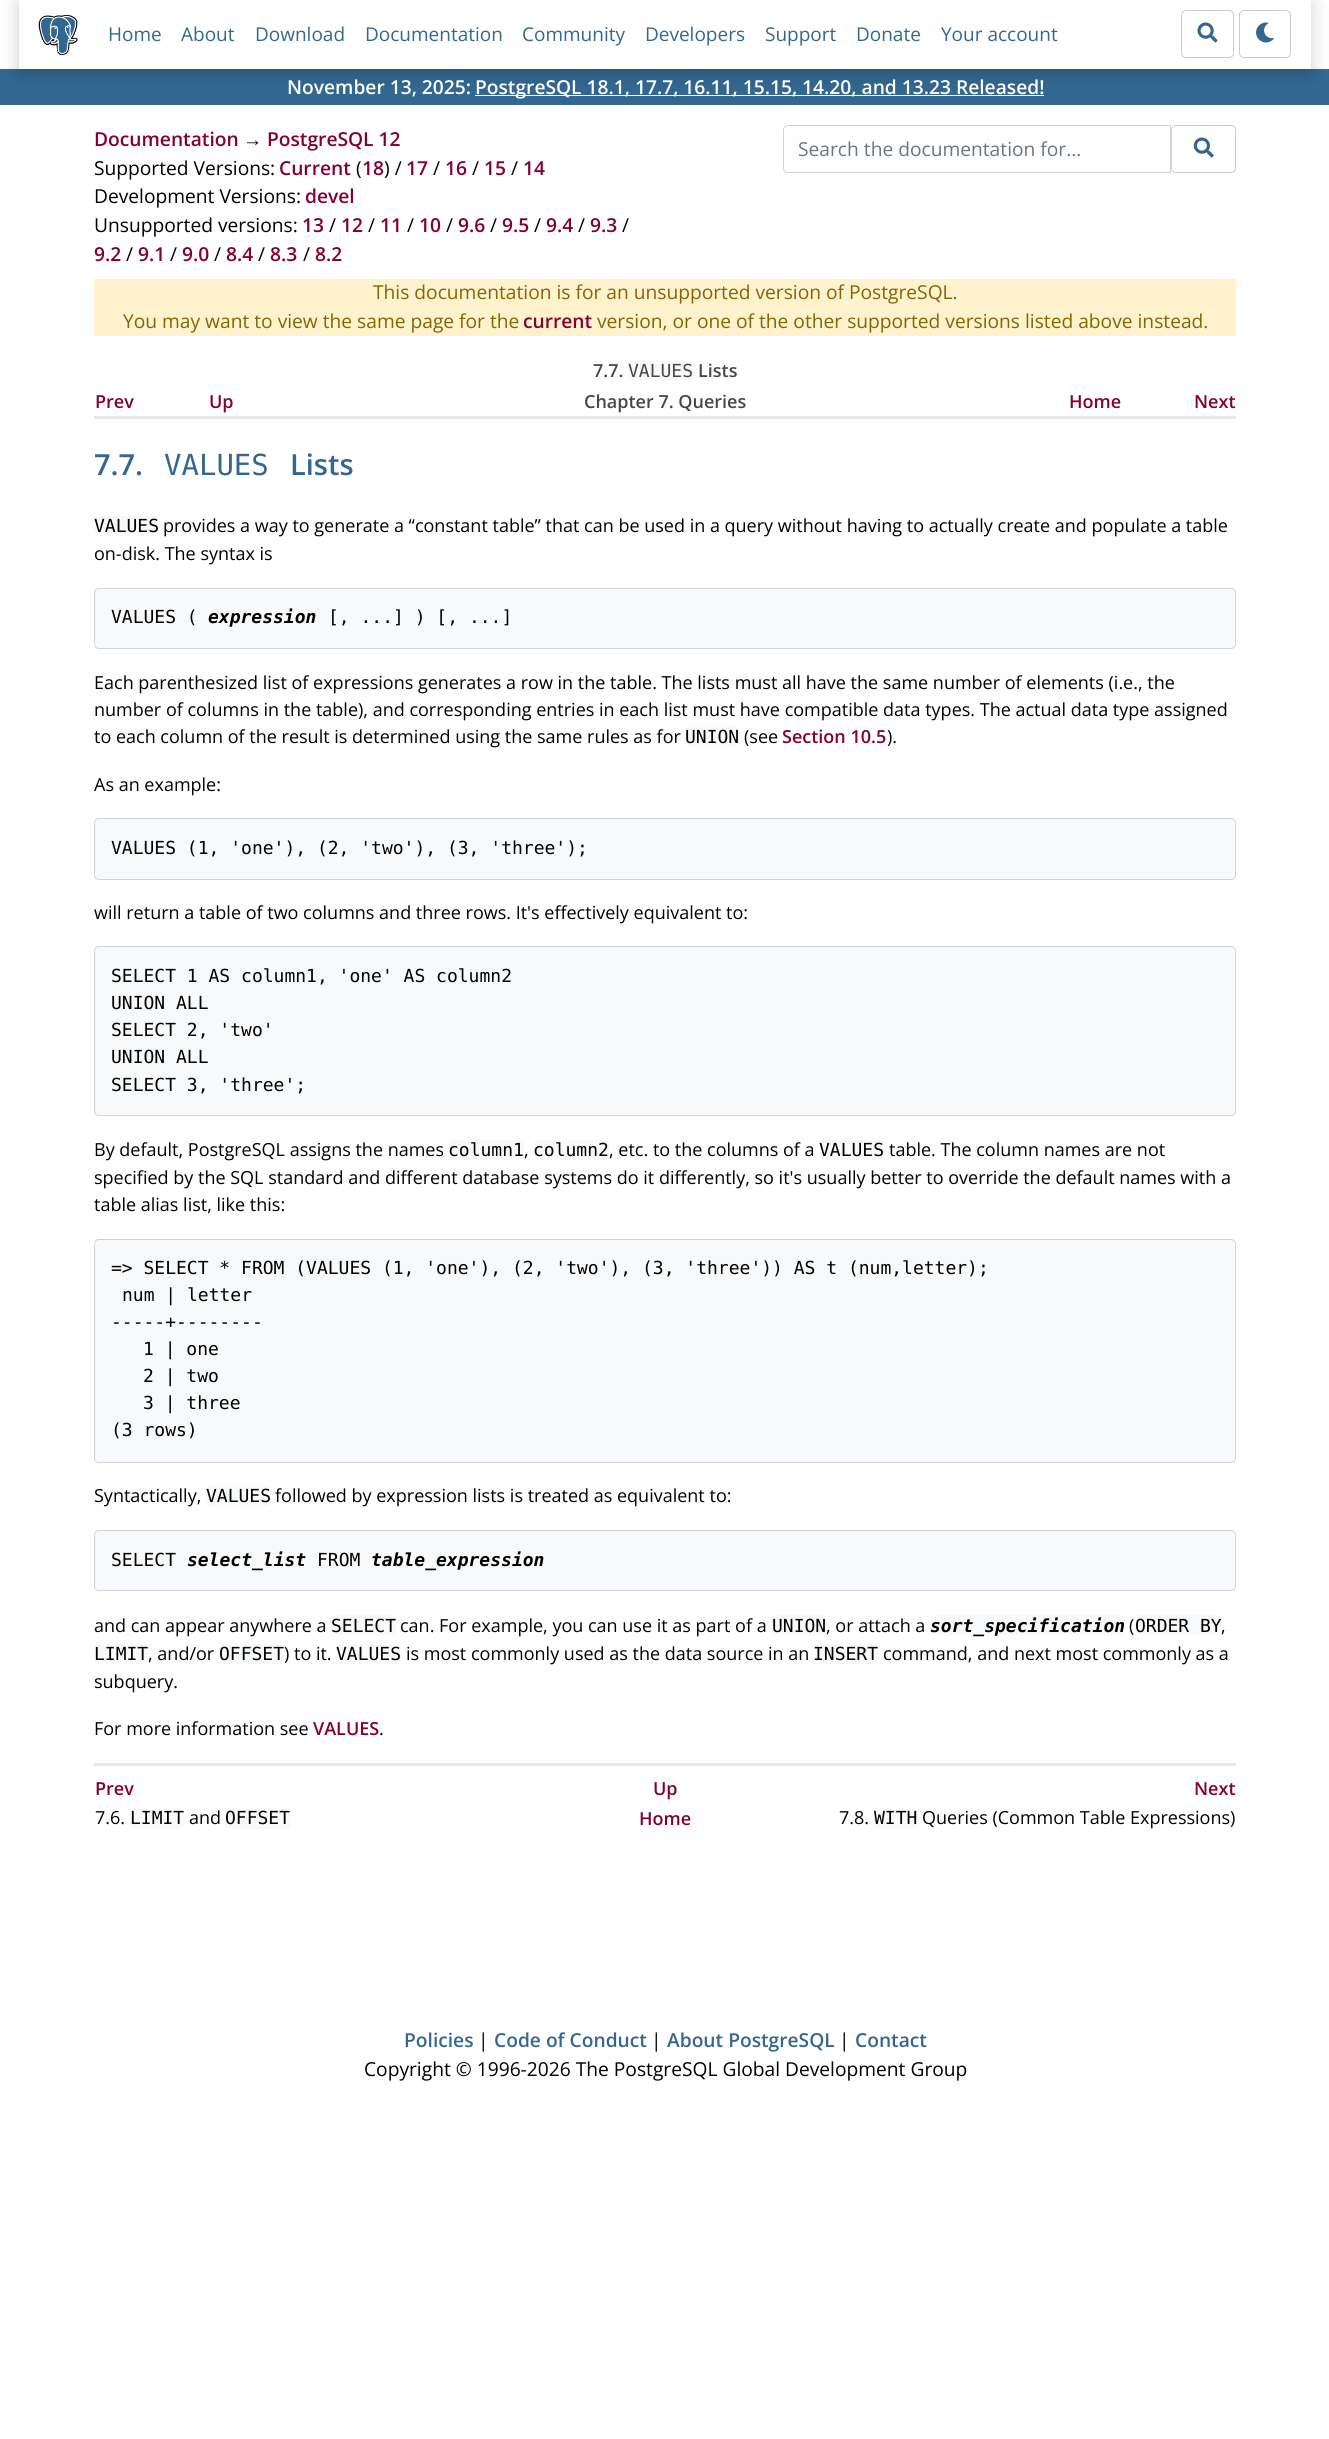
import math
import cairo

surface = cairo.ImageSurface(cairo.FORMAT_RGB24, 1329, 2439)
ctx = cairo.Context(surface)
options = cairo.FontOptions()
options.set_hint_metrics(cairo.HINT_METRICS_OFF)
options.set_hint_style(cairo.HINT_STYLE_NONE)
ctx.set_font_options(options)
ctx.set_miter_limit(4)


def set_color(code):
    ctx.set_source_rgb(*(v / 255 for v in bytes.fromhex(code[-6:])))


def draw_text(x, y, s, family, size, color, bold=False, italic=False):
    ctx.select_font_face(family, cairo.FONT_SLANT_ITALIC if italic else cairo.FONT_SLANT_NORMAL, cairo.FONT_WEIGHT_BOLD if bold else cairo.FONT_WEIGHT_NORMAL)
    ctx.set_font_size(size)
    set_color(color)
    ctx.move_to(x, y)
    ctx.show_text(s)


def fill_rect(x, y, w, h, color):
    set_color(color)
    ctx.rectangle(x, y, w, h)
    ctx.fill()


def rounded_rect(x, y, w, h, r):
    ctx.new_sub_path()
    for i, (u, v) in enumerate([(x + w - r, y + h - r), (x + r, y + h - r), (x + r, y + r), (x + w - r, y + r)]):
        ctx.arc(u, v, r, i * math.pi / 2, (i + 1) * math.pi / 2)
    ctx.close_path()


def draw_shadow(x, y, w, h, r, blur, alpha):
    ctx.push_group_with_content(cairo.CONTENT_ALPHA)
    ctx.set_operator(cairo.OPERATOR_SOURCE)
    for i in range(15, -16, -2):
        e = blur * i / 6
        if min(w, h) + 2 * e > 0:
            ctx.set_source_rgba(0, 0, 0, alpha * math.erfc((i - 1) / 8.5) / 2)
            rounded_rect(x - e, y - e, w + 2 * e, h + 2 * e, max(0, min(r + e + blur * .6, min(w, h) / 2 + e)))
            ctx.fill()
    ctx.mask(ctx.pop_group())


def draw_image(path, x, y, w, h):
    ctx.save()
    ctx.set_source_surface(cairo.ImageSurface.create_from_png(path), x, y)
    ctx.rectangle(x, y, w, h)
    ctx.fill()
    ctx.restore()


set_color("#ffffff")
ctx.paint()
fill_rect(0, 69, 1329, 36, "#336791")
ctx.save()
ctx.set_fill_rule(cairo.FILL_RULE_EVEN_ODD)
ctx.new_path()
ctx.move_to(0, 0)
ctx.line_to(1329, 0)
ctx.line_to(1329, 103)
ctx.line_to(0, 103)
ctx.close_path()
ctx.move_to(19, 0)
ctx.line_to(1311, 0)
ctx.line_to(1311, 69)
ctx.line_to(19, 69)
ctx.close_path()
ctx.clip()
set_color("#000000")
draw_shadow(19, 4, 1292, 69, 0, 9.5, 0.2)
ctx.restore()
draw_image("assets/img1.png", 38, 15, 40, 40)
draw_text(108, 41, "Home", "Open Sans", 19, "#336791")
draw_text(181, 41, "About", "Open Sans", 19, "#336791")
draw_text(255, 41, "Download", "Open Sans", 19, "#336791")
draw_text(365, 41, "Documentation", "Open Sans", 19, "#336791")
draw_text(522, 41, "Community", "Open Sans", 19, "#336791")
draw_text(645, 41, "Developers", "Open Sans", 19, "#336791")
draw_text(765, 41, "Support", "Open Sans", 19, "#336791")
draw_text(856, 41, "Donate", "Open Sans", 19, "#336791")
draw_text(941, 41, "Your account", "Open Sans", 19, "#336791")
rounded_rect(1181.5, 10.5, 52, 47, 4.5)
set_color("#cccccc")
ctx.set_line_width(1)
ctx.stroke()
draw_image("assets/img2.png", 1197, 22, 21, 21)
rounded_rect(1239.5, 10.5, 51, 47, 4.5)
ctx.stroke()
draw_image("assets/img3.png", 1256, 22, 18, 21)
draw_text(287, 94, "November 13, 2025:", "Open Sans SemiBold", 19.2, "#ffffff")
fill_rect(475, 95, 569, 1, "#ffffff")
draw_text(475, 94, "PostgreSQL 18.1, 17.7, 16.11, 15.15, 14.20, and 13.23 Released!", "Open Sans SemiBold", 19.2, "#ffffff")
draw_text(94, 146, "Documentation", "Open Sans SemiBold", 19.2, "#840032")
draw_text(243, 146, "→", "Liberation Sans", 19.2, "#000000")
draw_text(267, 146, "PostgreSQL 12", "Open Sans SemiBold", 19.2, "#840032")
draw_text(94, 175, "Supported Versions:", "Open Sans", 19.2, "#000000")
draw_text(279, 175, "Current", "Open Sans SemiBold", 19.2, "#840032")
draw_text(356, 175, "(", "Open Sans", 19.2, "#000000")
draw_text(362, 175, "18", "Open Sans SemiBold", 19.2, "#840032")
draw_text(384, 175, ") /", "Open Sans", 19.2, "#000000")
draw_text(406, 175, "17", "Open Sans SemiBold", 19.2, "#840032")
draw_text(433, 175, "/", "Open Sans", 19.2, "#000000")
draw_text(445, 175, "16", "Open Sans SemiBold", 19.2, "#840032")
draw_text(472, 175, "/", "Open Sans", 19.2, "#000000")
draw_text(484, 175, "15", "Open Sans SemiBold", 19.2, "#840032")
draw_text(511, 175, "/", "Open Sans", 19.2, "#000000")
draw_text(523, 175, "14", "Open Sans SemiBold", 19.2, "#840032")
draw_text(94, 203, "Development Versions:", "Open Sans", 19.2, "#000000")
draw_text(305, 203, "devel", "Open Sans SemiBold", 19.2, "#840032")
draw_text(94, 232, "Unsupported versions:", "Open Sans", 19.2, "#000000")
draw_text(302, 232, "13", "Open Sans SemiBold", 19.2, "#840032")
draw_text(329, 232, "/", "Open Sans", 19.2, "#000000")
draw_text(341, 232, "12", "Open Sans SemiBold", 19.2, "#840032")
draw_text(368, 232, "/", "Open Sans", 19.2, "#000000")
draw_text(380, 232, "11", "Open Sans SemiBold", 19.2, "#840032")
draw_text(407, 232, "/", "Open Sans", 19.2, "#000000")
draw_text(419, 232, "10", "Open Sans SemiBold", 19.2, "#840032")
draw_text(446, 232, "/", "Open Sans", 19.2, "#000000")
draw_text(458, 232, "9.6", "Open Sans SemiBold", 19.2, "#840032")
draw_text(490, 232, "/", "Open Sans", 19.2, "#000000")
draw_text(502, 232, "9.5", "Open Sans SemiBold", 19.2, "#840032")
draw_text(534, 232, "/", "Open Sans", 19.2, "#000000")
draw_text(546, 232, "9.4", "Open Sans SemiBold", 19.2, "#840032")
draw_text(578, 232, "/", "Open Sans", 19.2, "#000000")
draw_text(590, 232, "9.3", "Open Sans SemiBold", 19.2, "#840032")
draw_text(622, 232, "/", "Open Sans", 19.2, "#000000")
draw_text(94, 261, "9.2", "Open Sans SemiBold", 19.2, "#840032")
draw_text(126, 261, "/", "Open Sans", 19.2, "#000000")
draw_text(138, 261, "9.1", "Open Sans SemiBold", 19.2, "#840032")
draw_text(170, 261, "/", "Open Sans", 19.2, "#000000")
draw_text(182, 261, "9.0", "Open Sans SemiBold", 19.2, "#840032")
draw_text(214, 261, "/", "Open Sans", 19.2, "#000000")
draw_text(226, 261, "8.4", "Open Sans SemiBold", 19.2, "#840032")
draw_text(258, 261, "/", "Open Sans", 19.2, "#000000")
draw_text(270, 261, "8.3", "Open Sans SemiBold", 19.2, "#840032")
draw_text(303, 261, "/", "Open Sans", 19.2, "#000000")
draw_text(315, 261, "8.2", "Open Sans SemiBold", 19.2, "#840032")
ctx.new_path()
ctx.move_to(788, 125.5)
ctx.line_to(1170.5, 125.5)
ctx.line_to(1170.5, 172.5)
ctx.line_to(788, 172.5)
ctx.curve_to(785.5, 172.5, 783.5, 170.5, 783.5, 168)
ctx.line_to(783.5, 130)
ctx.curve_to(783.5, 127.5, 785.5, 125.5, 788, 125.5)
ctx.close_path()
set_color("#ced4da")
ctx.stroke()
draw_text(798, 156, "Search the documentation for...", "Open Sans", 19.2, "#6c757d")
rounded_rect(1171.5, 125.5, 64, 47, 4.5)
set_color("#cccccc")
ctx.stroke()
draw_image("assets/img4.png", 1193, 137, 21, 21)
fill_rect(94, 279, 1142, 57, "#fff3cd")
draw_text(373, 299, "This documentation is for an unsupported version of PostgreSQL.", "Open Sans", 19.2, "#856404")
draw_text(123, 328, "You may want to view the same page for the", "Open Sans", 19.2, "#856404")
draw_text(523, 328, "current", "Open Sans SemiBold", 19.2, "#840032")
draw_text(597, 328, "version, or one of the other supported versions listed above instead.", "Open Sans", 19.2, "#856404")
draw_text(593, 377, "7.7.", "Open Sans SemiBold", 18, "#474747")
set_color("#f8f9fa")
rounded_rect(628, 361, 65, 20, 5)
ctx.fill()
draw_text(628, 377, "VALUES", "DejaVu Sans Mono", 18, "#474747")
draw_text(698, 377, "Lists", "Open Sans SemiBold", 18, "#474747")
draw_text(95, 408, "Prev", "Open Sans SemiBold", 18, "#840032")
draw_text(209, 408, "Up", "Open Sans SemiBold", 18, "#840032")
draw_text(584, 408, "Chapter 7. Queries", "Open Sans SemiBold", 18, "#474747")
draw_text(1069, 408, "Home", "Open Sans SemiBold", 18, "#840032")
draw_text(1194, 408, "Next", "Open Sans SemiBold", 18, "#840032")
fill_rect(94, 416, 1142, 3, "#e7eae8")
draw_text(94, 475, "7.7.", "Open Sans SemiBold", 29, "#336791")
draw_text(164, 475, "VALUES", "DejaVu Sans Mono", 29, "#336791")
draw_text(290, 475, "Lists", "Open Sans SemiBold", 29, "#336791")
set_color("#f8f9fa")
rounded_rect(94, 516, 65, 20, 5)
ctx.fill()
draw_text(94, 532, "VALUES", "DejaVu Sans Mono", 18, "#000000")
draw_text(163, 532, "provides a way to generate a “constant table” that can be used in a query without having to actually create and populate a table", "Open Sans", 18, "#000000")
draw_text(94, 560, "on-disk. The syntax is", "Open Sans", 18, "#000000")
set_color("#f8f9fa")
rounded_rect(94.5, 588.5, 1141, 60, 4.5)
ctx.fill_preserve()
set_color("#ced4da")
ctx.stroke()
draw_text(111, 623, "VALUES (", "DejaVu Sans Mono", 18, "#000000")
draw_text(208, 623, "expression", "DejaVu Sans Mono", 18, "#000000", bold=True, italic=True)
draw_text(328, 623, "[, ...] ) [, ...]", "DejaVu Sans Mono", 18, "#000000")
draw_text(94, 689, "Each parenthesized list of expressions generates a row in the table. The lists must all have the same number of elements (i.e., the", "Open Sans", 18, "#000000")
draw_text(94, 716, "number of columns in the table), and corresponding entries in each list must have compatible data types. The actual data type assigned", "Open Sans", 18, "#000000")
draw_text(94, 743, "to each column of the result is determined using the same rules as for", "Open Sans", 18, "#000000")
set_color("#f8f9fa")
rounded_rect(685, 726, 54, 20, 5)
ctx.fill()
draw_text(685, 743, "UNION", "DejaVu Sans Mono", 18, "#000000")
draw_text(744, 743, "(see", "Open Sans", 18, "#000000")
draw_text(782, 743, "Section 10.5", "Open Sans SemiBold", 18, "#840032")
draw_text(887, 743, ").", "Open Sans", 18, "#000000")
draw_text(94, 791, "As an example:", "Open Sans", 18, "#000000")
set_color("#f8f9fa")
rounded_rect(94.5, 818.5, 1141, 61, 4.5)
ctx.fill_preserve()
set_color("#ced4da")
ctx.stroke()
draw_text(111, 854, "VALUES (1, 'one'), (2, 'two'), (3, 'three');", "DejaVu Sans Mono", 18, "#000000")
draw_text(94, 919, "will return a table of two columns and three rows. It's effectively equivalent to:", "Open Sans", 18, "#000000")
set_color("#f8f9fa")
rounded_rect(94.5, 946.5, 1141, 169, 4.5)
ctx.fill_preserve()
set_color("#ced4da")
ctx.stroke()
draw_text(111, 982, "SELECT 1 AS column1, 'one' AS column2", "DejaVu Sans Mono", 18, "#000000")
draw_text(111, 1009, "UNION ALL", "DejaVu Sans Mono", 18, "#000000")
draw_text(111, 1036, "SELECT 2, 'two'", "DejaVu Sans Mono", 18, "#000000")
draw_text(111, 1063, "UNION ALL", "DejaVu Sans Mono", 18, "#000000")
draw_text(111, 1091, "SELECT 3, 'three';", "DejaVu Sans Mono", 18, "#000000")
draw_text(94, 1156, "By default, PostgreSQL assigns the names", "Open Sans", 18, "#000000")
set_color("#f8f9fa")
rounded_rect(449, 1140, 75, 20, 5)
ctx.fill()
draw_text(448, 1156, "column1", "DejaVu Sans Mono", 18, "#000000")
draw_text(524, 1156, ",", "Open Sans", 18, "#000000")
set_color("#f8f9fa")
rounded_rect(534, 1140, 75, 20, 5)
ctx.fill()
draw_text(533, 1156, "column2", "DejaVu Sans Mono", 18, "#000000")
draw_text(609, 1156, ", etc. to the columns of a", "Open Sans", 18, "#000000")
set_color("#f8f9fa")
rounded_rect(820, 1140, 65, 20, 5)
ctx.fill()
draw_text(819, 1156, "VALUES", "DejaVu Sans Mono", 18, "#000000")
draw_text(889, 1156, "table. The column names are not", "Open Sans", 18, "#000000")
draw_text(94, 1184, "specified by the SQL standard and different database systems do it differently, so it's usually better to override the default names with a", "Open Sans", 18, "#000000")
draw_text(94, 1211, "table alias list, like this:", "Open Sans", 18, "#000000")
set_color("#f8f9fa")
rounded_rect(94.5, 1239.5, 1141, 223, 4.5)
ctx.fill_preserve()
set_color("#ced4da")
ctx.stroke()
draw_text(111, 1274, "=> SELECT * FROM (VALUES (1, 'one'), (2, 'two'), (3, 'three')) AS t (num,letter);", "DejaVu Sans Mono", 18, "#000000")
draw_text(122, 1301, "num | letter", "DejaVu Sans Mono", 18, "#000000")
draw_text(111, 1328, "-----+--------", "DejaVu Sans Mono", 18, "#000000")
draw_text(143, 1355, "1 | one", "DejaVu Sans Mono", 18, "#000000")
draw_text(143, 1382, "2 | two", "DejaVu Sans Mono", 18, "#000000")
draw_text(143, 1409, "3 | three", "DejaVu Sans Mono", 18, "#000000")
draw_text(111, 1436, "(3 rows)", "DejaVu Sans Mono", 18, "#000000")
draw_text(94, 1502, "Syntactically,", "Open Sans", 18, "#000000")
set_color("#f8f9fa")
rounded_rect(206, 1486, 65, 20, 5)
ctx.fill()
draw_text(206, 1502, "VALUES", "DejaVu Sans Mono", 18, "#000000")
draw_text(275, 1502, "followed by expression lists is treated as equivalent to:", "Open Sans", 18, "#000000")
set_color("#f8f9fa")
rounded_rect(94.5, 1530.5, 1141, 60, 4.5)
ctx.fill_preserve()
set_color("#ced4da")
ctx.stroke()
draw_text(111, 1566, "SELECT", "DejaVu Sans Mono", 18, "#000000")
draw_text(187, 1566, "select_list", "DejaVu Sans Mono", 18, "#000000", bold=True, italic=True)
draw_text(317, 1566, "FROM", "DejaVu Sans Mono", 18, "#000000")
draw_text(371, 1566, "table_expression", "DejaVu Sans Mono", 18, "#000000", bold=True, italic=True)
draw_text(94, 1632, "and can appear anywhere a", "Open Sans", 18, "#000000")
set_color("#f8f9fa")
rounded_rect(331, 1615, 65, 20, 5)
ctx.fill()
draw_text(331, 1632, "SELECT", "DejaVu Sans Mono", 18, "#000000")
draw_text(400, 1632, "can. For example, you can use it as part of a", "Open Sans", 18, "#000000")
set_color("#f8f9fa")
rounded_rect(771, 1615, 55, 20, 5)
ctx.fill()
draw_text(772, 1632, "UNION", "DejaVu Sans Mono", 18, "#000000")
draw_text(826, 1632, ", or attach a", "Open Sans", 18, "#000000")
set_color("#f8f9fa")
rounded_rect(930, 1615, 195, 20, 5)
ctx.fill()
draw_text(930, 1632, "sort_specification", "DejaVu Sans Mono", 18, "#000000", bold=True, italic=True)
draw_text(1129, 1632, "(", "Open Sans", 18, "#000000")
set_color("#f8f9fa")
rounded_rect(1135, 1615, 86, 20, 5)
ctx.fill()
draw_text(1135, 1632, "ORDER BY", "DejaVu Sans Mono", 18, "#000000")
draw_text(1221, 1632, ",", "Open Sans", 18, "#000000")
set_color("#f8f9fa")
rounded_rect(94, 1644, 54, 20, 5)
ctx.fill()
draw_text(94, 1660, "LIMIT", "DejaVu Sans Mono", 18, "#000000")
draw_text(148, 1660, ", and/or", "Open Sans", 18, "#000000")
set_color("#f8f9fa")
rounded_rect(219, 1644, 65, 20, 5)
ctx.fill()
draw_text(219, 1660, "OFFSET", "DejaVu Sans Mono", 18, "#000000")
draw_text(284, 1660, ") to it.", "Open Sans", 18, "#000000")
set_color("#f8f9fa")
rounded_rect(336, 1644, 65, 20, 5)
ctx.fill()
draw_text(336, 1660, "VALUES", "DejaVu Sans Mono", 18, "#000000")
draw_text(406, 1660, "is most commonly used as the data source in an", "Open Sans", 18, "#000000")
set_color("#f8f9fa")
rounded_rect(814, 1644, 65, 20, 5)
ctx.fill()
draw_text(813, 1660, "INSERT", "DejaVu Sans Mono", 18, "#000000")
draw_text(883, 1660, "command, and next most commonly as a", "Open Sans", 18, "#000000")
draw_text(94, 1688, "subquery.", "Open Sans", 18, "#000000")
draw_text(94, 1735, "For more information see", "Open Sans", 18, "#000000")
draw_text(313, 1735, "VALUES", "Open Sans SemiBold", 18, "#840032")
draw_text(379, 1735, ".", "Open Sans", 18, "#000000")
fill_rect(94, 1763, 1142, 3, "#e7eae8")
draw_text(95, 1795, "Prev", "Open Sans SemiBold", 18, "#840032")
draw_text(653, 1795, "Up", "Open Sans SemiBold", 18, "#840032")
draw_text(1194, 1795, "Next", "Open Sans SemiBold", 18, "#840032")
draw_text(95, 1824, "7.6.", "Open Sans", 18, "#000000")
set_color("#f8f9fa")
rounded_rect(130, 1809, 54, 20, 5)
ctx.fill()
draw_text(130, 1824, "LIMIT", "DejaVu Sans Mono", 18, "#000000")
draw_text(189, 1824, "and", "Open Sans", 18, "#000000")
set_color("#f8f9fa")
rounded_rect(225, 1809, 65, 20, 5)
ctx.fill()
draw_text(225, 1824, "OFFSET", "DejaVu Sans Mono", 18, "#000000")
draw_text(639, 1825, "Home", "Open Sans SemiBold", 18, "#840032")
draw_text(839, 1824, "7.8.", "Open Sans", 18, "#000000")
set_color("#f8f9fa")
rounded_rect(874, 1809, 44, 20, 5)
ctx.fill()
draw_text(874, 1824, "WITH", "DejaVu Sans Mono", 18, "#000000")
draw_text(922, 1824, "Queries (Common Table Expressions)", "Open Sans", 18, "#000000")
draw_text(404, 2047, "Policies", "Open Sans SemiBold", 19.2, "#336791")
draw_text(478, 2047, "|", "Open Sans", 19.2, "#000000")
draw_text(494, 2047, "Code of Conduct", "Open Sans SemiBold", 19.2, "#336791")
draw_text(651, 2047, "|", "Open Sans", 19.2, "#000000")
draw_text(667, 2047, "About PostgreSQL", "Open Sans SemiBold", 19.2, "#336791")
draw_text(839, 2047, "|", "Open Sans", 19.2, "#000000")
draw_text(855, 2047, "Contact", "Open Sans SemiBold", 19.2, "#336791")
draw_text(364, 2076, "Copyright © 1996-2026 The PostgreSQL Global Development Group", "Open Sans", 19.2, "#000000")
surface.write_to_png("output.png")
